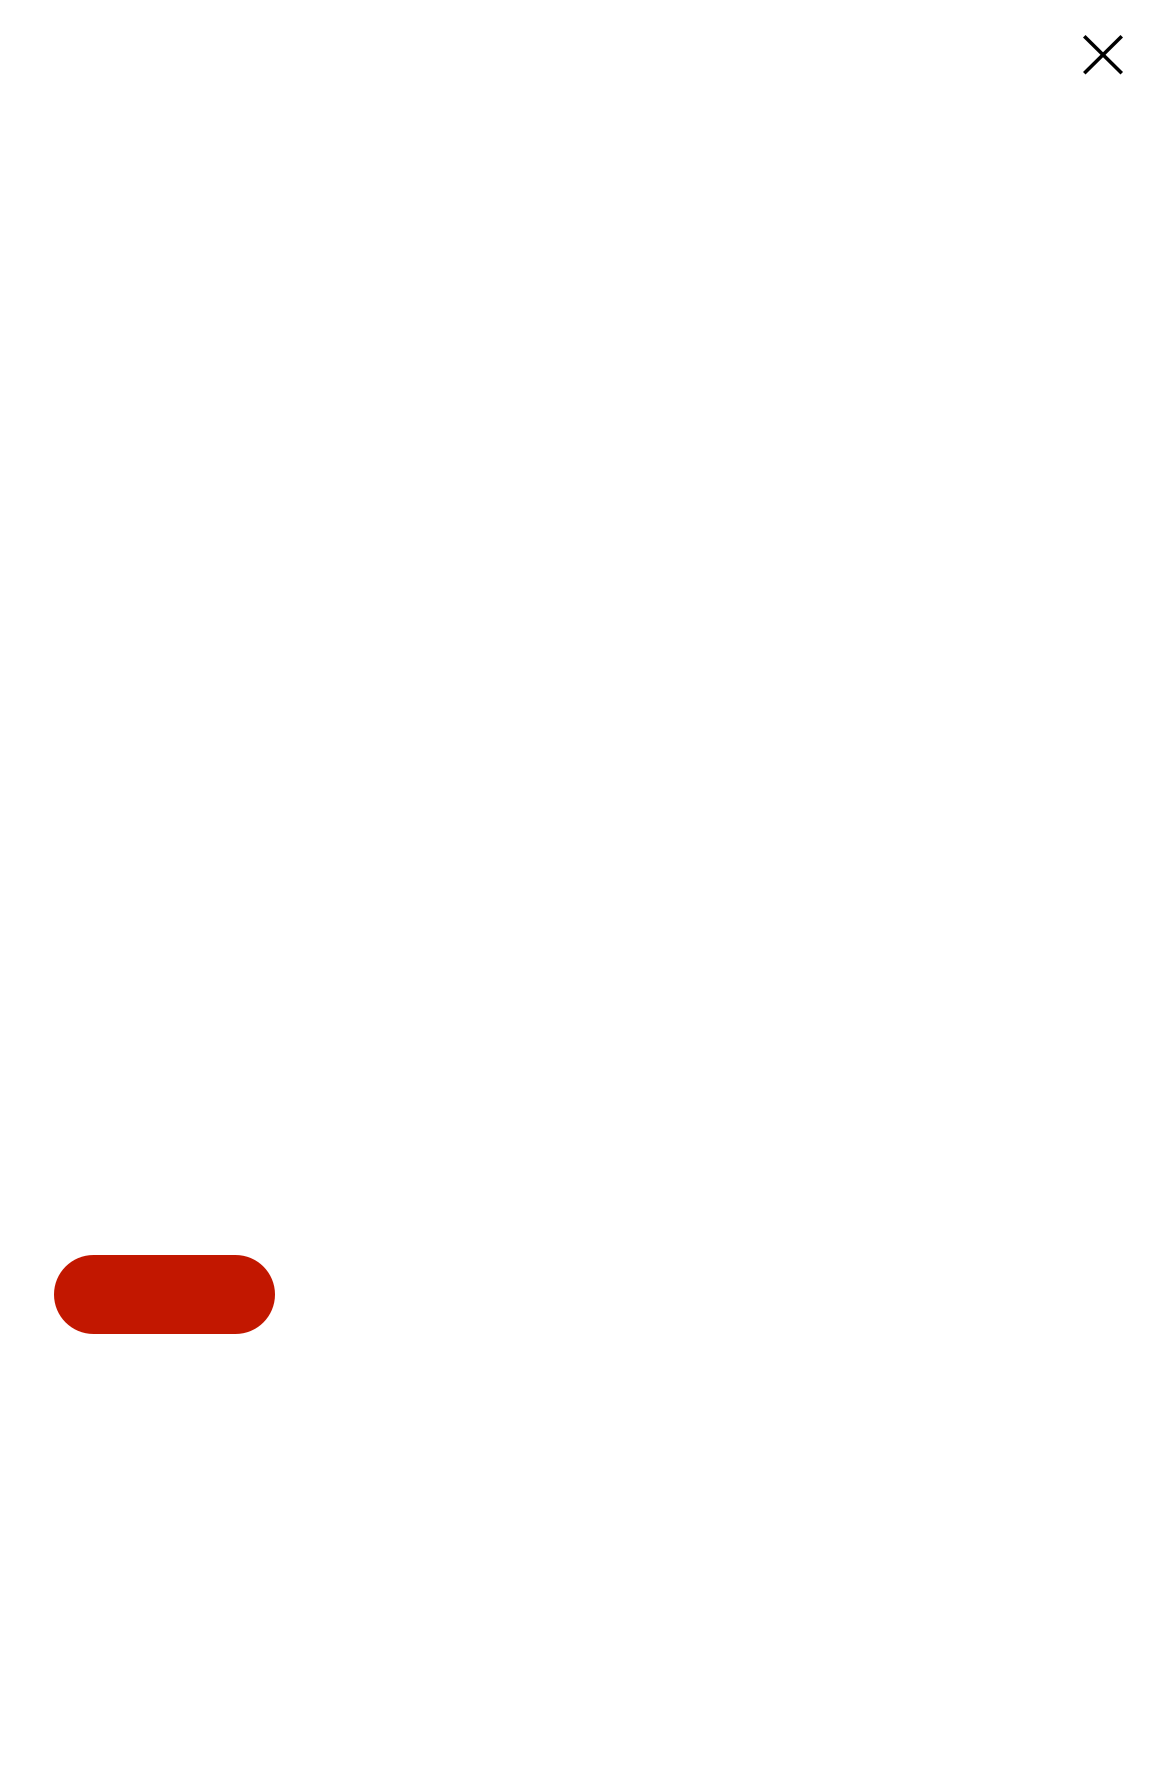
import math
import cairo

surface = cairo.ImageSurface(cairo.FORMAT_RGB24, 1158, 1766)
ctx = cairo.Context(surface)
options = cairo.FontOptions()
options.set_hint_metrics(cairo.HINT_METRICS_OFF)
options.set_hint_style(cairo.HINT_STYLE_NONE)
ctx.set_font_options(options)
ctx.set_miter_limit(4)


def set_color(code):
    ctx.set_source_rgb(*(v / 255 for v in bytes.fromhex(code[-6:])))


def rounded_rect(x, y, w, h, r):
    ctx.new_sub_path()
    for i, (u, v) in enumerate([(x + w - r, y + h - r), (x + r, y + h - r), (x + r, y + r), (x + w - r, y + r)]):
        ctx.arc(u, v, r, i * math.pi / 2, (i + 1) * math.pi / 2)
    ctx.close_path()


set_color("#ffffff")
ctx.paint()
set_color("#000000")
ctx.set_fill_rule(cairo.FILL_RULE_EVEN_ODD)
ctx.new_path()
ctx.move_to(1083, 37.5)
ctx.line_to(1085.5, 35)
ctx.line_to(1123, 72)
ctx.line_to(1120.5, 74.5)
ctx.close_path()
ctx.fill()
ctx.new_path()
ctx.move_to(1120.5, 35)
ctx.line_to(1123, 37.5)
ctx.line_to(1085.5, 74.5)
ctx.line_to(1083, 72)
ctx.close_path()
ctx.fill()
set_color("#c21700")
rounded_rect(54, 1255, 221, 79, 39.5)
ctx.fill()
surface.write_to_png("output.png")
